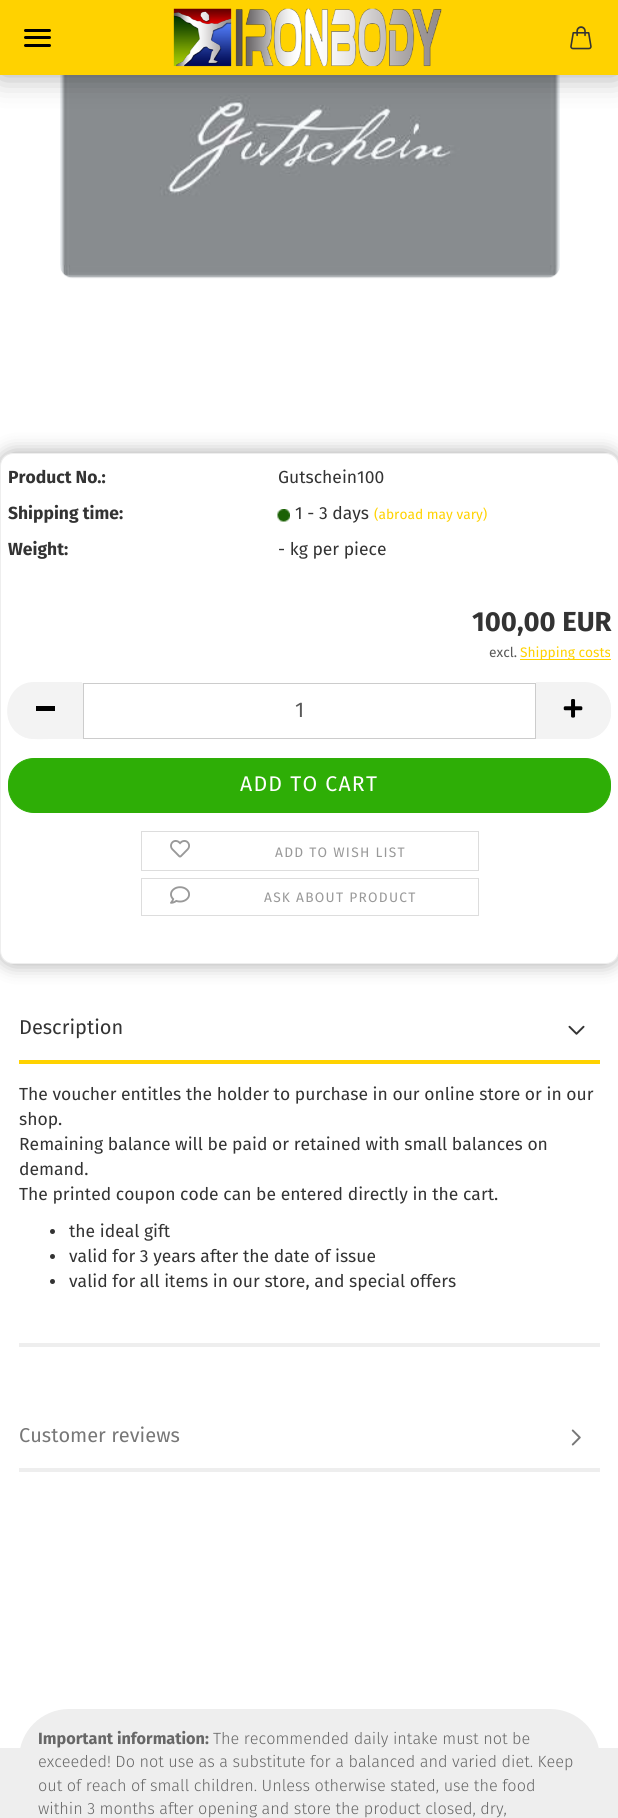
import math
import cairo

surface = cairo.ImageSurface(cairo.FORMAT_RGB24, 618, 1818)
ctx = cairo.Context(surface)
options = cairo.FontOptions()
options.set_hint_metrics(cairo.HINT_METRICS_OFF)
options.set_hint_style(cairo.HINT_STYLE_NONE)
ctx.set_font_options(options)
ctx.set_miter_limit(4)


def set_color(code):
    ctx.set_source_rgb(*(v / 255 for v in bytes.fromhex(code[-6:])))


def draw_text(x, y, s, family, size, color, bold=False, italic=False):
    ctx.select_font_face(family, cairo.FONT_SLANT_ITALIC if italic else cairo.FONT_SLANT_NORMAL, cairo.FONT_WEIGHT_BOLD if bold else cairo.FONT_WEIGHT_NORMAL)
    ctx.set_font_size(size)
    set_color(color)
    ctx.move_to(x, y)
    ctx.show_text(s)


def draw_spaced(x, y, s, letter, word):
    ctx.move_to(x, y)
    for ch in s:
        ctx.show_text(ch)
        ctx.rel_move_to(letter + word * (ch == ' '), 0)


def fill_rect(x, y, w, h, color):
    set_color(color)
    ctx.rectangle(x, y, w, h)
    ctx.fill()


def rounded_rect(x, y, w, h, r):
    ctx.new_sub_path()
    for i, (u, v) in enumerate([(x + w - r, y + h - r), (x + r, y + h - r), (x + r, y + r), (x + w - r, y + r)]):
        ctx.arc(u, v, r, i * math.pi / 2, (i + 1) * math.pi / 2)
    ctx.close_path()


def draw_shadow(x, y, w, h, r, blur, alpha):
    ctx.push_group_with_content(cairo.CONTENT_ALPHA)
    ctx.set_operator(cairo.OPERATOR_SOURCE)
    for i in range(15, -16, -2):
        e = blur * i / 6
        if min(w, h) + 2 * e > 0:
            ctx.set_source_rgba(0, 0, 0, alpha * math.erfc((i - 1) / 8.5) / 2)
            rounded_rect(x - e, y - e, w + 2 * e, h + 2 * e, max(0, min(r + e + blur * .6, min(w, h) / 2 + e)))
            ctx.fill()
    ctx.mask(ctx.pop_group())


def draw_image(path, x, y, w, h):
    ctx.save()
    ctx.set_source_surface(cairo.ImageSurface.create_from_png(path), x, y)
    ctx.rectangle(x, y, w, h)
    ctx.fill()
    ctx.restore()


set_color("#ffffff")
ctx.paint()
draw_image("assets/img3.png", 60, 75, 500, 204)
set_color("#000000")
draw_shadow(0, 0, 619, 75, 0, 15.5, 0.35)
fill_rect(0, 0, 618, 75, "#ffd200")
draw_image("assets/img1.png", 173, 8, 269, 59)
draw_image("assets/img2.png", 570, 26, 22, 24)
set_color("#000000")
rounded_rect(24, 36, 27, 3, 1.5)
ctx.fill()
rounded_rect(24, 29, 27, 3, 1.5)
ctx.fill()
rounded_rect(24, 44, 27, 3, 1.5)
ctx.fill()
set_color("#000000")
draw_shadow(0, 453, 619, 511, 13, 9.5, 0.35)
set_color("#ffffff")
rounded_rect(0.5, 453.5, 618, 510, 12.5)
ctx.fill_preserve()
set_color("#eeeeee")
ctx.set_line_width(1)
ctx.stroke()
draw_text(8, 483, "Product No.:", "Fira Sans", 17.5, "#333333", bold=True)
draw_text(278, 483, "Gutschein100", "Fira Sans", 17.5, "#333333")
draw_text(8, 519, "Shipping time:", "Fira Sans", 17.5, "#333333", bold=True)
draw_image("assets/img4.png", 277, 509, 13, 13)
draw_text(295, 519, "1 - 3 days", "Fira Sans", 17.5, "#333333")
draw_text(374, 519, "(abroad may vary)", "Fira Sans", 13.75, "#ffd200")
draw_text(8, 555, "Weight:", "Fira Sans", 17.5, "#333333", bold=True)
draw_text(278, 555, "- kg per piece", "Fira Sans", 17.5, "#333333")
draw_text(472, 631, "100,00 EUR", "Fira Sans", 27.5, "#333333", bold=True)
draw_text(489, 657, "excl.", "Fira Sans", 13.75, "#595959")
fill_rect(520, 659, 91, 1, "#ffd200")
draw_text(520, 657, "Shipping costs", "Fira Sans", 13.75, "#ffd200")
set_color("#f3f3f3")
ctx.new_path()
ctx.move_to(34, 683)
ctx.line_to(83, 683)
ctx.line_to(83, 739)
ctx.line_to(34, 739)
ctx.curve_to(19.5, 739, 8, 727.5, 8, 713)
ctx.line_to(8, 709)
ctx.curve_to(8, 694.5, 19.5, 683, 34, 683)
ctx.close_path()
ctx.fill()
ctx.set_fill_rule(cairo.FILL_RULE_EVEN_ODD)
ctx.new_path()
ctx.move_to(34, 682)
ctx.line_to(82, 682)
ctx.line_to(82, 739)
ctx.line_to(50, 739)
ctx.curve_to(41, 739, 32, 740, 24, 737)
ctx.curve_to(-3, 726, 4, 682, 34, 682)
ctx.close_path()
ctx.move_to(34, 684)
ctx.line_to(82, 684)
ctx.line_to(82, 738)
ctx.line_to(50, 738)
ctx.curve_to(42, 738, 32, 739, 24, 736)
ctx.curve_to(-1, 725, 6, 684, 34, 684)
ctx.close_path()
ctx.fill()
fill_rect(36, 706, 19, 5, "#000000")
ctx.rectangle(83.5, 683.5, 452, 55)
set_color("#cccccc")
ctx.stroke()
draw_text(295, 717, "1", "Fira Sans", 21.25, "#595959")
set_color("#f3f3f3")
ctx.new_path()
ctx.move_to(536, 683)
ctx.line_to(585, 683)
ctx.curve_to(599.5, 683, 611, 694.5, 611, 709)
ctx.line_to(611, 713)
ctx.curve_to(611, 727.5, 599.5, 739, 585, 739)
ctx.line_to(536, 739)
ctx.close_path()
ctx.fill()
ctx.new_path()
ctx.move_to(536, 682)
ctx.line_to(585, 682)
ctx.curve_to(599, 682, 611, 694, 611, 709)
ctx.line_to(611, 712)
ctx.curve_to(611, 727, 599, 739, 585, 739)
ctx.line_to(536, 739)
ctx.close_path()
ctx.move_to(536, 684)
ctx.line_to(585, 684)
ctx.curve_to(599, 684, 610, 695, 610, 709)
ctx.line_to(610, 712)
ctx.curve_to(610, 726, 599, 738, 585, 738)
ctx.line_to(536, 738)
ctx.close_path()
ctx.fill()
draw_image("assets/img5.png", 563, 699, 20, 19)
set_color("#2eae06")
rounded_rect(8.5, 758.5, 602, 54, 25.5)
ctx.fill_preserve()
ctx.stroke()
set_color("#ffffff")
draw_spaced(240, 791, "ADD TO CART", 1.25, 0)
ctx.rectangle(141.5, 831.5, 337, 39)
set_color("#dddddd")
ctx.stroke()
draw_image("assets/img6.png", 170, 840, 20, 18)
ctx.set_font_size(13.75)
set_color("#999999")
draw_spaced(275, 857, "ADD TO WISH LIST", 1.25, 0)
ctx.rectangle(141.5, 878.5, 337, 37)
set_color("#dddddd")
ctx.stroke()
draw_image("assets/img7.png", 170, 886, 20, 18)
set_color("#999999")
draw_spaced(264, 902, "ASK ABOUT PRODUCT", 1.25, 0)
fill_rect(19, 1060, 581, 4, "#ffd200")
draw_text(19, 1034, "Description", "Fira Sans", 20, "#333333")
draw_image("assets/img8.png", 568, 1025, 17, 10)
fill_rect(19, 1343, 581, 4, "#eeeeee")
draw_text(19, 1100, "The voucher entitles the holder to purchase in our online store or in our", "Fira Sans", 17.5, "#333333")
draw_text(19, 1125, "shop.", "Fira Sans", 17.5, "#333333")
draw_text(19, 1150, "Remaining balance will be paid or retained with small balances on", "Fira Sans", 17.5, "#333333")
draw_text(19, 1175, "demand.", "Fira Sans", 17.5, "#333333")
draw_text(19, 1200, "The printed coupon code can be entered directly in the cart.", "Fira Sans", 17.5, "#333333")
ctx.new_path()
ctx.arc(52.5, 1231.5, 2.5, 0, 2 * math.pi)
ctx.fill()
draw_text(69, 1237, "the ideal gift", "Fira Sans", 17.5, "#333333")
ctx.new_path()
ctx.arc(52.5, 1256.5, 2.5, 0, 2 * math.pi)
ctx.fill()
draw_text(69, 1262, "valid for 3 years after the date of issue", "Fira Sans", 17.5, "#333333")
ctx.new_path()
ctx.arc(52.5, 1281.5, 2.5, 0, 2 * math.pi)
ctx.fill()
draw_text(69, 1287, "valid for all items in our store, and special offers", "Fira Sans", 17.5, "#333333")
fill_rect(19, 1468, 581, 4, "#eeeeee")
draw_text(19, 1442, "Customer reviews", "Fira Sans", 20, "#777777")
draw_image("assets/img9.png", 571, 1429, 10, 17)
fill_rect(0, 1748, 618, 70, "#eeeeee")
rounded_rect(19, 1709, 581, 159, 50)
ctx.fill()
draw_text(38, 1744, "Important information:", "Fira Sans", 16.25, "#666666", bold=True)
draw_text(213, 1744, "The recommended daily intake must not be", "Fira Sans Light", 16.25, "#666666")
draw_text(38, 1767, "exceeded! Do not use as a substitute for a balanced and varied diet. Keep", "Fira Sans Light", 16.25, "#666666")
draw_text(38, 1791, "out of reach of small children. Unless otherwise stated, use the food", "Fira Sans Light", 16.25, "#666666")
draw_text(38, 1814, "within 3 months after opening and store the product closed, dry,", "Fira Sans Light", 16.25, "#666666")
surface.write_to_png("output.png")
